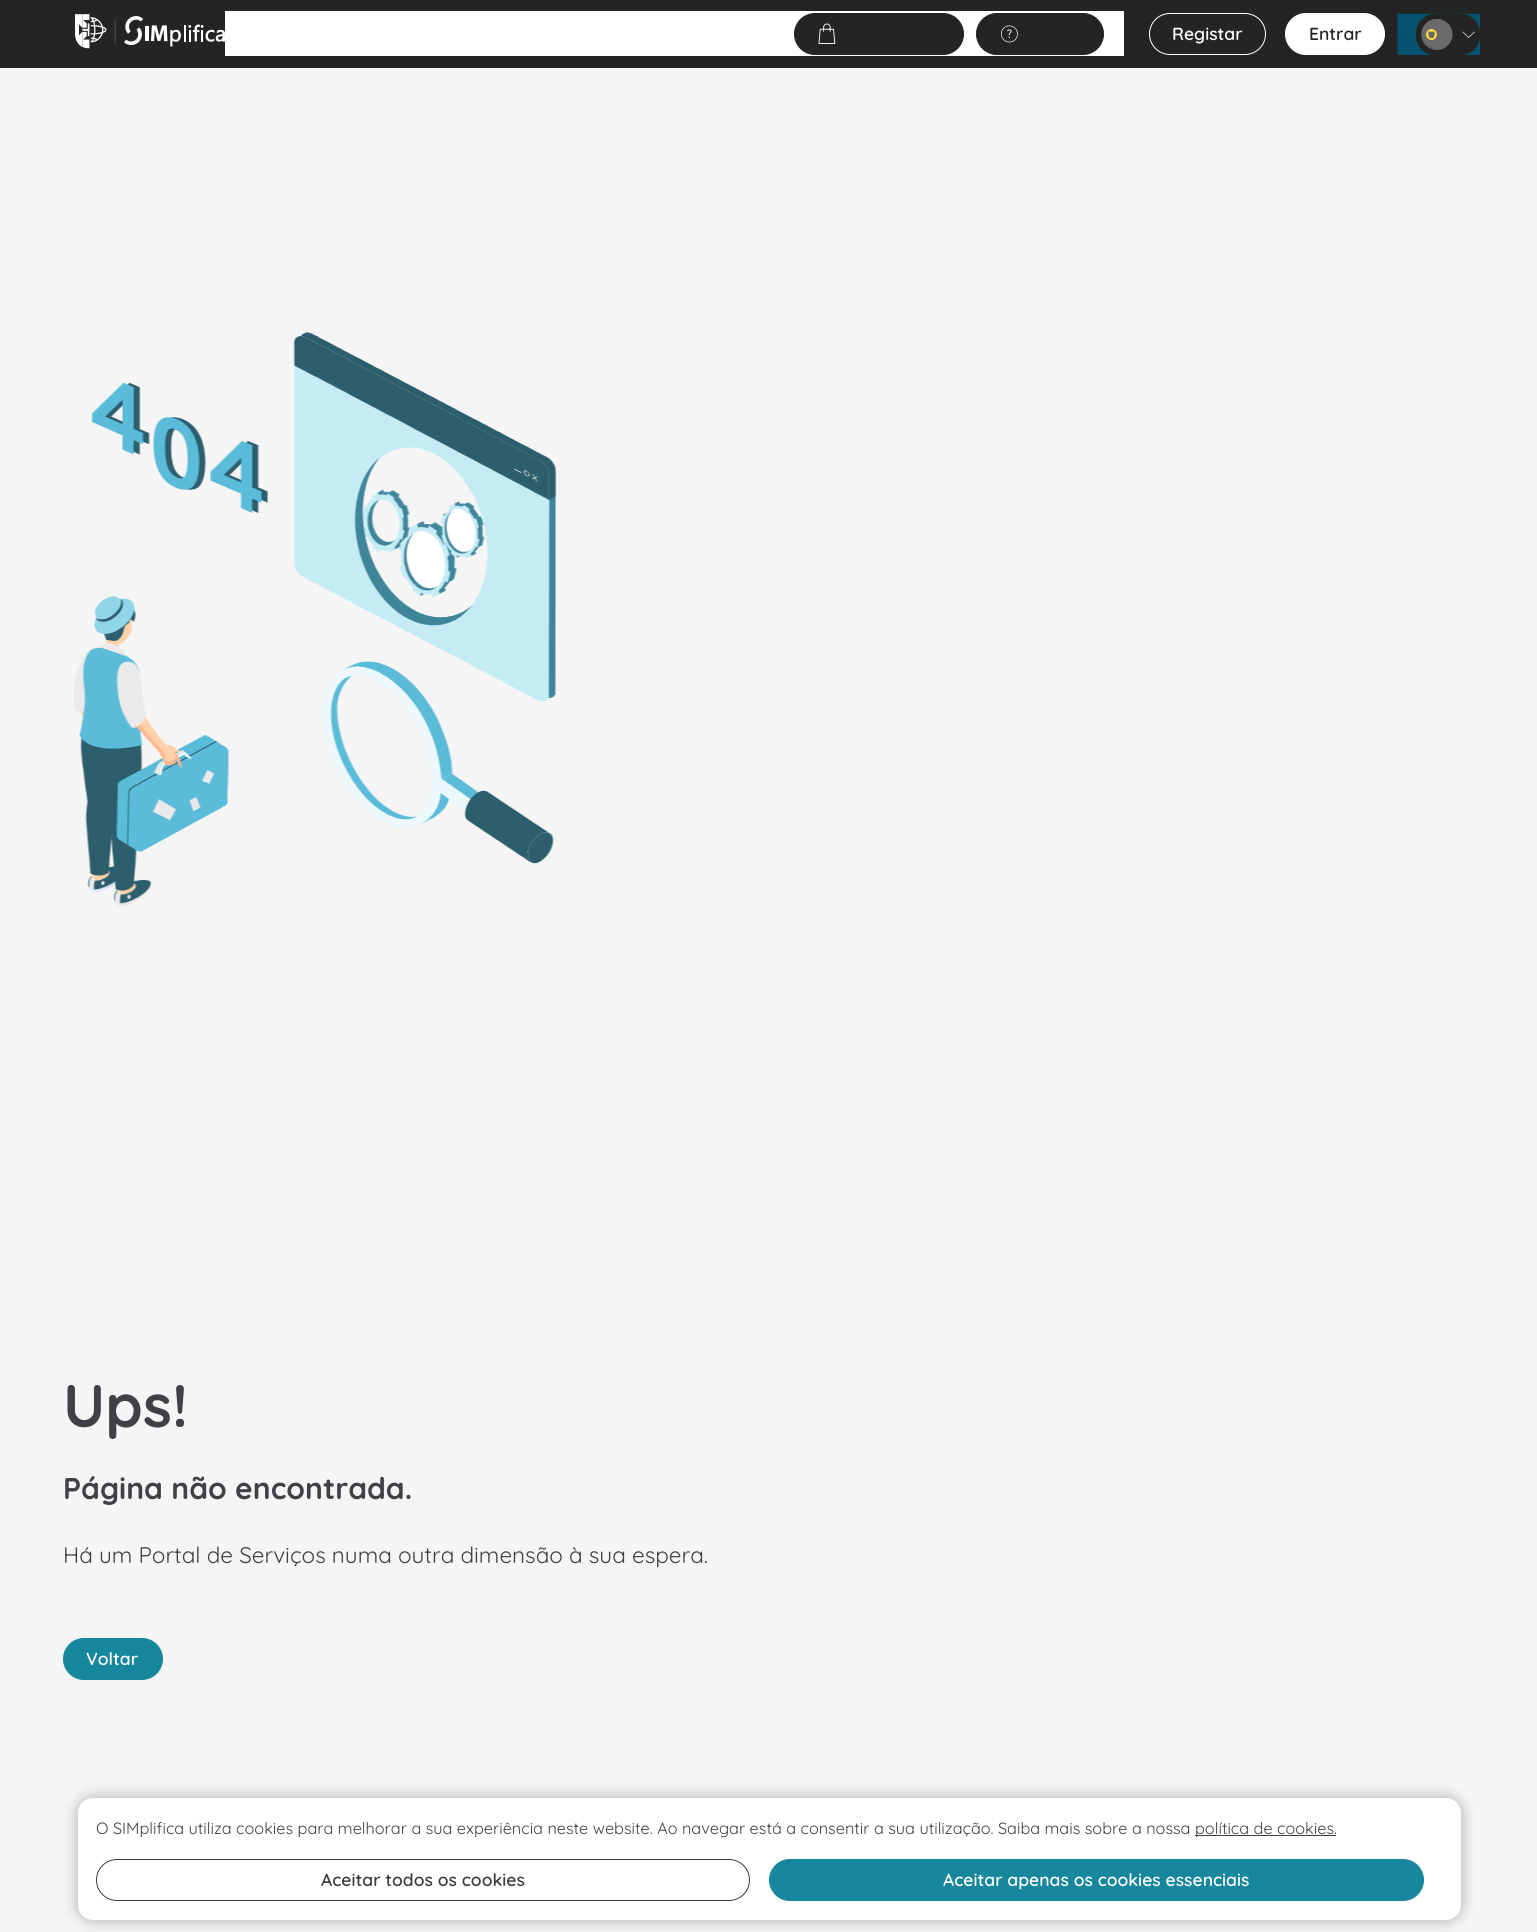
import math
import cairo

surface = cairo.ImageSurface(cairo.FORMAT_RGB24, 1537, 1932)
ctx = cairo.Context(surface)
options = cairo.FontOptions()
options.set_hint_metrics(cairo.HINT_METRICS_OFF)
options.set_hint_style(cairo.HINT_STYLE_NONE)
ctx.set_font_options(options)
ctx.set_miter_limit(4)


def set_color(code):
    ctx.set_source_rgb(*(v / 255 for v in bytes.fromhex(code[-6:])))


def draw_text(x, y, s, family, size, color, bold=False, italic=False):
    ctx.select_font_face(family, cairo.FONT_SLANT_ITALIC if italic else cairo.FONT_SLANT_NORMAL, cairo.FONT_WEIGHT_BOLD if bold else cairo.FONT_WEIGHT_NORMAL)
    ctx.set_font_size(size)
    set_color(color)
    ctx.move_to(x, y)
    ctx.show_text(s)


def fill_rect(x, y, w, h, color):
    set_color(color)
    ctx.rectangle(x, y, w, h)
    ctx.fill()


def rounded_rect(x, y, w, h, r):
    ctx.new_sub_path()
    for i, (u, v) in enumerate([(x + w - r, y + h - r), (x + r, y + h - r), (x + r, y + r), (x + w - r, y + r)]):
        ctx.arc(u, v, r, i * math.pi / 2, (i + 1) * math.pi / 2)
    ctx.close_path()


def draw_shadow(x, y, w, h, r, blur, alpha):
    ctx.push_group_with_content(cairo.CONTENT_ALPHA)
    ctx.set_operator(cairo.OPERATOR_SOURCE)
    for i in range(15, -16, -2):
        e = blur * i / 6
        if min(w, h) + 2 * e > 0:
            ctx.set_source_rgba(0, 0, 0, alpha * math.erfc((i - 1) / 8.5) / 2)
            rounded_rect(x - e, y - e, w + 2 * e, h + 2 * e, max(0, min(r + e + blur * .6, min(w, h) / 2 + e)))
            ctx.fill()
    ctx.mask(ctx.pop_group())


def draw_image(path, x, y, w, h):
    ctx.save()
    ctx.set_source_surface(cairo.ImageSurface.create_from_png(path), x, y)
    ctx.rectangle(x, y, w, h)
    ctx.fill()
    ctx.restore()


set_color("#f5f5f5")
ctx.paint()
fill_rect(0, 0, 1537, 68, "#242424")
draw_image("assets/img1.png", 75, 14, 150, 35)
fill_rect(225, 11, 899, 45, "#ffffff")
set_color("#242424")
rounded_rect(794.5, 13.5, 169, 41, 20.5)
ctx.fill_preserve()
ctx.set_line_width(1)
ctx.stroke()
draw_image("assets/img2.png", 818, 23, 18, 21)
rounded_rect(976.5, 13.5, 127, 41, 20.5)
ctx.fill_preserve()
ctx.stroke()
draw_image("assets/img3.png", 1001, 25, 17, 18)
rounded_rect(1149.5, 13.5, 116, 41, 20.5)
set_color("#ffffff")
ctx.stroke()
draw_text(1172, 40, "Registar", "Quicksand SemiBold", 17.5, "#ffffff")
rounded_rect(1285.5, 13.5, 99, 41, 20.5)
ctx.fill_preserve()
ctx.stroke()
draw_text(1309, 40, "Entrar", "Quicksand SemiBold", 17.5, "#242424")
draw_image("assets/img4.png", 1397, 13, 83, 42)
rounded_rect(1416, 14, 64, 41, 19)
ctx.fill()
draw_image("assets/img5.png", 1421, 19, 32, 31)
ctx.new_path()
ctx.move_to(1463, 32)
ctx.line_to(1468.5, 37.5)
ctx.line_to(1474.5, 32)
set_color("#bfbfbf")
ctx.set_line_width(0.9)
ctx.set_line_cap(cairo.LINE_CAP_ROUND)
ctx.set_line_join(cairo.LINE_JOIN_ROUND)
ctx.stroke()
draw_image("assets/img6.png", 73, 332, 484, 574)
draw_text(63, 1427, "Ups!", "Quicksand Light", 60, "#404147")
draw_text(63, 1499, "Página não encontrada.", "Quicksand Light", 30, "#404147")
draw_text(63, 1563, "Há um Portal de Serviços numa outra dimensão à sua espera.", "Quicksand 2 Light", 22.5, "#404147")
set_color("#17879d")
rounded_rect(63.5, 1638.5, 99, 41, 20.5)
ctx.fill_preserve()
ctx.set_line_width(1)
ctx.set_line_cap(cairo.LINE_CAP_BUTT)
ctx.set_line_join(cairo.LINE_JOIN_MITER)
ctx.stroke()
draw_text(86, 1665, "Voltar", "Quicksand SemiBold", 17.5, "#ffffff")
set_color("#000000")
draw_shadow(78, 1798, 1383, 122, 15, 7.5, 0.31)
set_color("#ffffff")
rounded_rect(78, 1798, 1383, 122, 15)
ctx.fill()
draw_text(96, 1834, "O SIMplifica utiliza cookies para melhorar a sua experiência neste website. Ao navegar está a consentir a sua utilização. Saiba mais sobre a nossa", "Quicksand 2 Light", 16.25, "#404147")
fill_rect(1195, 1835, 141, 1, "#404147")
draw_text(1195, 1834, "política de cookies.", "Quicksand 2 Light", 16.25, "#404147")
rounded_rect(96.5, 1859.5, 653, 41, 20.5)
set_color("#3d3d3d")
ctx.stroke()
draw_text(321, 1886, "Aceitar todos os cookies", "Quicksand SemiBold", 17.5, "#3d3d3d")
set_color("#17879d")
rounded_rect(769.5, 1859.5, 654, 41, 20.5)
ctx.fill_preserve()
ctx.stroke()
draw_text(943, 1886, "Aceitar apenas os cookies essenciais", "Quicksand SemiBold", 17.5, "#ffffff")
surface.write_to_png("output.png")
